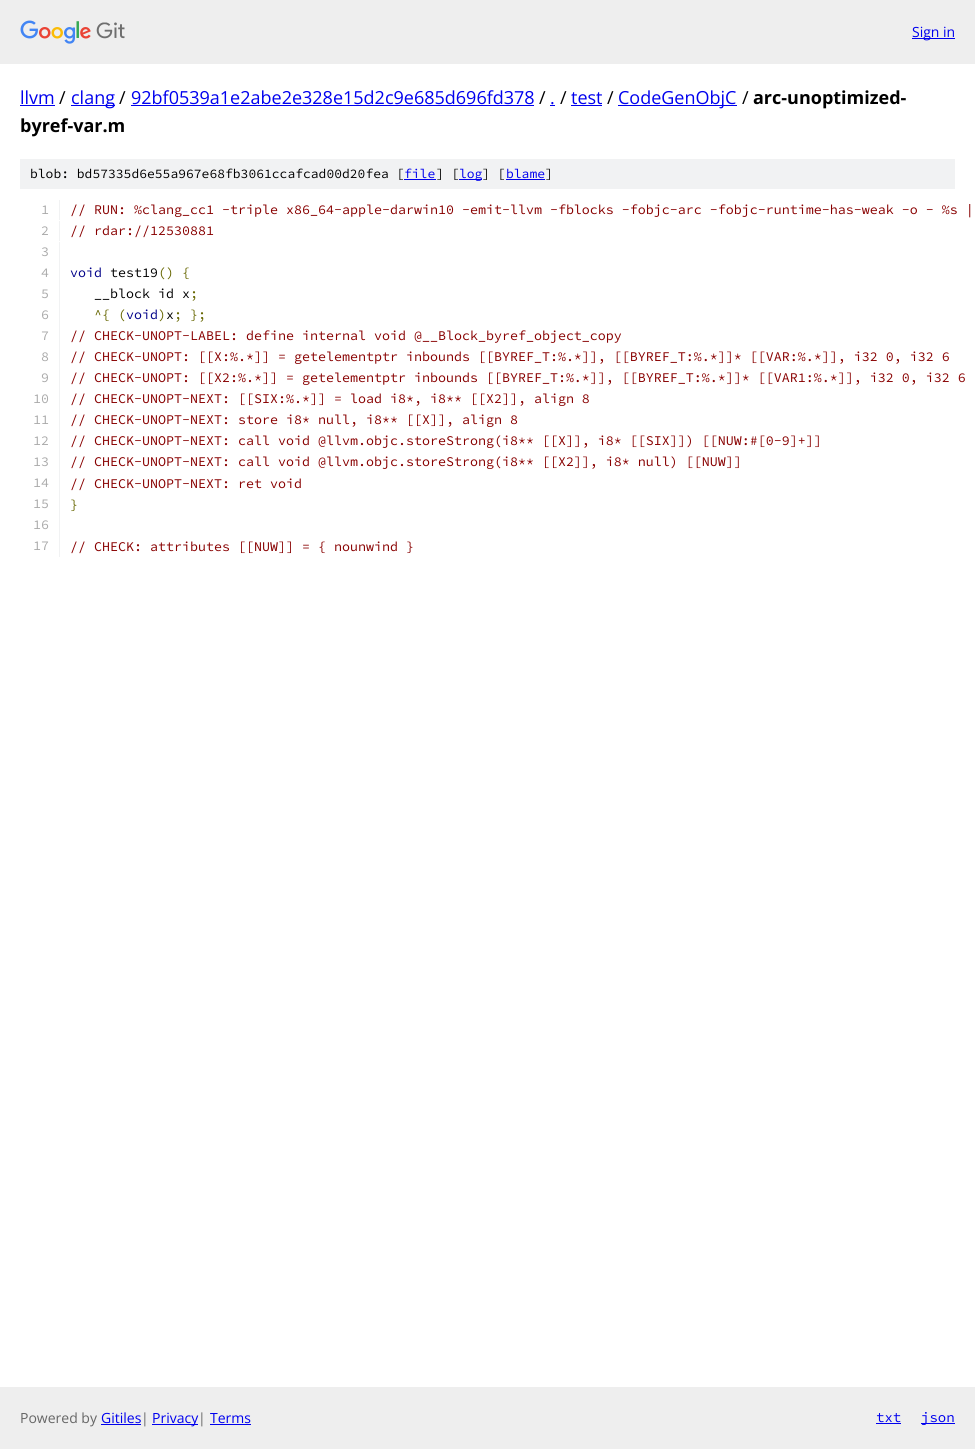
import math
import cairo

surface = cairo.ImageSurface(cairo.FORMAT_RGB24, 975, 1449)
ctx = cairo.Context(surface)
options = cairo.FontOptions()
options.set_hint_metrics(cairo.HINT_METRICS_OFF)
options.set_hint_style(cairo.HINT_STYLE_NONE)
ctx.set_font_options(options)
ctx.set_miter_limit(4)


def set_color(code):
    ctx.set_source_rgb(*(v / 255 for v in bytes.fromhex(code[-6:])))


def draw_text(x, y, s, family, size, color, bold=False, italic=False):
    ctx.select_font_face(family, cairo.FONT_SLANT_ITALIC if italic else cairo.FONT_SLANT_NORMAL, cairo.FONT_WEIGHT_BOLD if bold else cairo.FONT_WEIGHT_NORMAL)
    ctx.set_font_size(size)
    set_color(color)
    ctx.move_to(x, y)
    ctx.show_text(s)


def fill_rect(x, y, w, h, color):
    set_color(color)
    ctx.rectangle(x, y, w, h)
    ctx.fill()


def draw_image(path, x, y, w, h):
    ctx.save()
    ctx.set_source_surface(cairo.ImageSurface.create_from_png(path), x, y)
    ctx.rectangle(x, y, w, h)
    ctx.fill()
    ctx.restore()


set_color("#ffffff")
ctx.paint()
fill_rect(0, 0, 975, 64, "#eeeeee")
draw_image("assets/img1.png", 20, 20, 105, 24)
fill_rect(912, 38, 43, 1, "#0000ee")
draw_text(912, 37, "Sign in", "Open Sans", 14, "#0000ee")
draw_text(20, 104, "llvm", "Open Sans", 18, "#0000ee")
fill_rect(20, 105, 35, 1, "#0000ee")
draw_text(59, 104, "/", "Open Sans", 18, "#000000")
fill_rect(71, 105, 44, 1, "#0000ee")
draw_text(71, 104, "clang", "Open Sans", 18, "#0000ee")
draw_text(119, 104, "/", "Open Sans", 18, "#000000")
draw_text(131, 104, "92bf0539a1e2abe2e328e15d2c9e685d696fd378", "Open Sans", 18, "#0000ee")
fill_rect(131, 105, 403, 1, "#0000ee")
draw_text(539, 104, "/", "Open Sans", 18, "#000000")
draw_text(550, 104, ".", "Open Sans", 18, "#0000ee")
fill_rect(550, 105, 5, 1, "#0000ee")
draw_text(560, 104, "/", "Open Sans", 18, "#000000")
draw_text(571, 104, "test", "Open Sans", 18, "#0000ee")
fill_rect(571, 105, 31, 1, "#0000ee")
draw_text(607, 104, "/", "Open Sans", 18, "#000000")
fill_rect(618, 105, 119, 1, "#0000ee")
draw_text(618, 104, "CodeGenObjC", "Open Sans", 18, "#0000ee")
draw_text(742, 104, "/", "Open Sans", 18, "#000000")
draw_text(753, 104, "arc-unoptimized-", "Open Sans", 18, "#000000", bold=True)
draw_text(20, 132, "byref-var.m", "Open Sans", 18, "#000000", bold=True)
fill_rect(20, 159, 935, 30, "#f1f2f3")
draw_text(30, 178, "blob: bd57335d6e55a967e68fb3061ccafcad00d20fea [", "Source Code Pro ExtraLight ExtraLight", 13, "#000000")
draw_text(404, 178, "file", "Source Code Pro ExtraLight ExtraLight", 13, "#0000ee")
fill_rect(404, 179, 32, 1, "#0000ee")
draw_text(436, 178, "] [", "Source Code Pro ExtraLight ExtraLight", 13, "#000000")
fill_rect(459, 179, 23, 1, "#0000ee")
draw_text(459, 178, "log", "Source Code Pro ExtraLight ExtraLight", 13, "#0000ee")
draw_text(482, 178, "] [", "Source Code Pro ExtraLight ExtraLight", 13, "#000000")
draw_text(506, 178, "blame", "Source Code Pro ExtraLight ExtraLight", 13, "#0000ee")
fill_rect(506, 179, 39, 1, "#0000ee")
draw_text(545, 178, "]", "Source Code Pro ExtraLight ExtraLight", 13, "#000000")
fill_rect(59, 200, 1, 20, "#f1f2f3")
draw_text(41, 214, "1", "Source Code Pro ExtraLight ExtraLight", 13.33, "#aaaaaa")
draw_text(70, 214, "// RUN: %clang_cc1 -triple x86_64-apple-darwin10 -emit-llvm -fblocks -fobjc-arc -fobjc-runtime-has-weak -o - %s |", "Source Code Pro ExtraLight ExtraLight", 13.33, "#880000")
fill_rect(59, 221, 1, 20, "#f1f2f3")
draw_text(41, 235, "2", "Source Code Pro ExtraLight ExtraLight", 13.33, "#aaaaaa")
draw_text(70, 235, "// rdar://12530881", "Source Code Pro ExtraLight ExtraLight", 13.33, "#880000")
fill_rect(59, 242, 1, 315, "#f1f2f3")
draw_text(41, 256, "3", "Source Code Pro ExtraLight ExtraLight", 13.33, "#aaaaaa")
draw_text(41, 277, "4", "Source Code Pro ExtraLight ExtraLight", 13.33, "#aaaaaa")
draw_text(70, 277, "void", "Source Code Pro ExtraLight ExtraLight", 13.33, "#000088")
draw_text(110, 277, "test19", "Source Code Pro ExtraLight ExtraLight", 13.33, "#000000")
draw_text(158, 277, "() {", "Source Code Pro ExtraLight ExtraLight", 13.33, "#666600")
draw_text(41, 298, "5", "Source Code Pro ExtraLight ExtraLight", 13.33, "#aaaaaa")
draw_text(94, 298, "__block id x", "Source Code Pro ExtraLight ExtraLight", 13.33, "#000000")
draw_text(190, 298, ";", "Source Code Pro ExtraLight ExtraLight", 13.33, "#666600")
draw_text(41, 319, "6", "Source Code Pro ExtraLight ExtraLight", 13.33, "#aaaaaa")
draw_text(94, 319, "^{ (", "Source Code Pro ExtraLight ExtraLight", 13.33, "#666600")
draw_text(126, 319, "void", "Source Code Pro ExtraLight ExtraLight", 13.33, "#000088")
draw_text(158, 319, ") ; };", "Source Code Pro ExtraLight ExtraLight", 13.33, "#666600")
draw_text(166, 319, "x", "Source Code Pro ExtraLight ExtraLight", 13.33, "#000000")
draw_text(41, 340, "7", "Source Code Pro ExtraLight ExtraLight", 13.33, "#aaaaaa")
draw_text(70, 340, "// CHECK-UNOPT-LABEL: define internal void @__Block_byref_object_copy", "Source Code Pro ExtraLight ExtraLight", 13.33, "#880000")
draw_text(41, 361, "8", "Source Code Pro ExtraLight ExtraLight", 13.33, "#aaaaaa")
draw_text(70, 361, "// CHECK-UNOPT: [[X:%.*]] = getelementptr inbounds [[BYREF_T:%.*]], [[BYREF_T:%.*]]* [[VAR:%.*]], i32 0, i32 6", "Source Code Pro ExtraLight ExtraLight", 13.33, "#880000")
draw_text(41, 382, "9", "Source Code Pro ExtraLight ExtraLight", 13.33, "#aaaaaa")
draw_text(70, 382, "// CHECK-UNOPT: [[X2:%.*]] = getelementptr inbounds [[BYREF_T:%.*]], [[BYREF_T:%.*]]* [[VAR1:%.*]], i32 0, i32 6", "Source Code Pro ExtraLight ExtraLight", 13.33, "#880000")
draw_text(33, 403, "10", "Source Code Pro ExtraLight ExtraLight", 13.33, "#aaaaaa")
draw_text(70, 403, "// CHECK-UNOPT-NEXT: [[SIX:%.*]] = load i8*, i8** [[X2]], align 8", "Source Code Pro ExtraLight ExtraLight", 13.33, "#880000")
draw_text(33, 424, "11", "Source Code Pro ExtraLight ExtraLight", 13.33, "#aaaaaa")
draw_text(70, 424, "// CHECK-UNOPT-NEXT: store i8* null, i8** [[X]], align 8", "Source Code Pro ExtraLight ExtraLight", 13.33, "#880000")
draw_text(33, 445, "12", "Source Code Pro ExtraLight ExtraLight", 13.33, "#aaaaaa")
draw_text(70, 445, "// CHECK-UNOPT-NEXT: call void @llvm.objc.storeStrong(i8** [[X]], i8* [[SIX]]) [[NUW:#[0-9]+]]", "Source Code Pro ExtraLight ExtraLight", 13.33, "#880000")
draw_text(33, 466, "13", "Source Code Pro ExtraLight ExtraLight", 13.33, "#aaaaaa")
draw_text(70, 466, "// CHECK-UNOPT-NEXT: call void @llvm.objc.storeStrong(i8** [[X2]], i8* null) [[NUW]]", "Source Code Pro ExtraLight ExtraLight", 13.33, "#880000")
draw_text(33, 487, "14", "Source Code Pro ExtraLight ExtraLight", 13.33, "#aaaaaa")
draw_text(70, 488, "// CHECK-UNOPT-NEXT: ret void", "Source Code Pro ExtraLight ExtraLight", 13.33, "#880000")
draw_text(33, 508, "15", "Source Code Pro ExtraLight ExtraLight", 13.33, "#aaaaaa")
draw_text(70, 509, "}", "Source Code Pro ExtraLight ExtraLight", 13.33, "#666600")
draw_text(33, 529, "16", "Source Code Pro ExtraLight ExtraLight", 13.33, "#aaaaaa")
draw_text(33, 550, "17", "Source Code Pro ExtraLight ExtraLight", 13.33, "#aaaaaa")
draw_text(70, 551, "// CHECK: attributes [[NUW]] = { nounwind }", "Source Code Pro ExtraLight ExtraLight", 13.33, "#880000")
fill_rect(0, 1387, 975, 62, "#eeeeee")
draw_text(20, 1423, "Powered by", "Open Sans", 14, "#666666")
draw_text(101, 1423, "Gitiles", "Open Sans", 14, "#0000ee")
fill_rect(101, 1424, 40, 1, "#0000ee")
draw_text(141, 1423, "|", "Open Sans", 14, "#666666")
fill_rect(152, 1424, 46, 1, "#0000ee")
draw_text(152, 1423, "Privacy", "Open Sans", 14, "#0000ee")
draw_text(198, 1423, "|", "Open Sans", 14, "#666666")
draw_text(210, 1423, "Terms", "Open Sans", 14, "#0000ee")
fill_rect(210, 1424, 41, 1, "#0000ee")
draw_text(876, 1422, "txt", "Source Code Pro ExtraLight ExtraLight", 14, "#0000ee")
fill_rect(876, 1423, 25, 1, "#0000ee")
fill_rect(921, 1423, 34, 1, "#0000ee")
draw_text(921, 1422, "json", "Source Code Pro ExtraLight ExtraLight", 14, "#0000ee")
surface.write_to_png("output.png")
